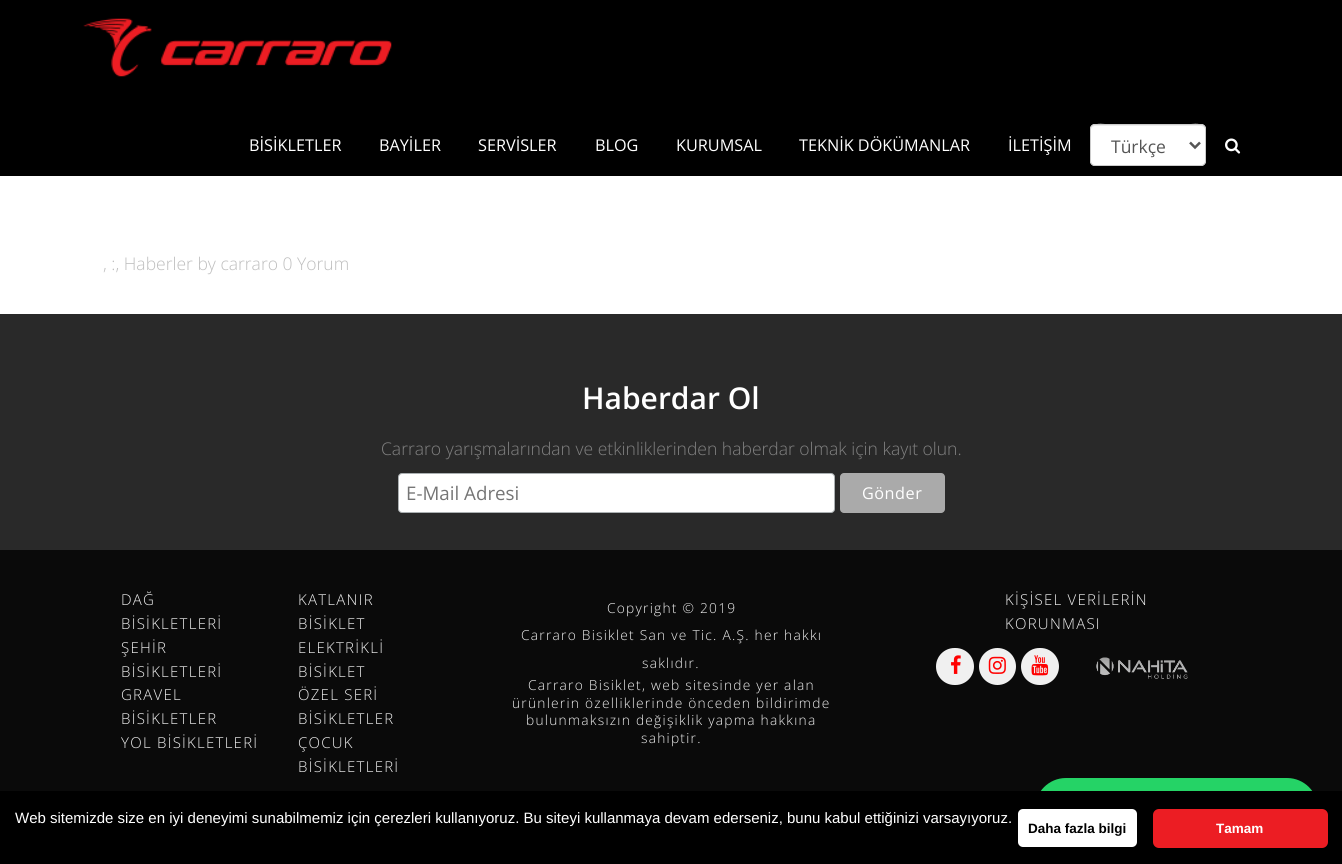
import math
import cairo

surface = cairo.ImageSurface(cairo.FORMAT_RGB24, 1342, 864)
ctx = cairo.Context(surface)
options = cairo.FontOptions()
options.set_hint_metrics(cairo.HINT_METRICS_OFF)
options.set_hint_style(cairo.HINT_STYLE_NONE)
ctx.set_font_options(options)
ctx.set_miter_limit(4)


def set_color(code):
    ctx.set_source_rgb(*(v / 255 for v in bytes.fromhex(code[-6:])))


def draw_text(x, y, s, family, size, color, bold=False, italic=False):
    ctx.select_font_face(family, cairo.FONT_SLANT_ITALIC if italic else cairo.FONT_SLANT_NORMAL, cairo.FONT_WEIGHT_BOLD if bold else cairo.FONT_WEIGHT_NORMAL)
    ctx.set_font_size(size)
    set_color(color)
    ctx.move_to(x, y)
    ctx.show_text(s)


def draw_spaced(x, y, s, letter, word):
    ctx.move_to(x, y)
    for ch in s:
        ctx.show_text(ch)
        ctx.rel_move_to(letter + word * (ch == ' '), 0)


def fill_rect(x, y, w, h, color):
    set_color(color)
    ctx.rectangle(x, y, w, h)
    ctx.fill()


def rounded_rect(x, y, w, h, r):
    ctx.new_sub_path()
    for i, (u, v) in enumerate([(x + w - r, y + h - r), (x + r, y + h - r), (x + r, y + r), (x + w - r, y + r)]):
        ctx.arc(u, v, r, i * math.pi / 2, (i + 1) * math.pi / 2)
    ctx.close_path()


def draw_image(path, x, y, w, h):
    ctx.save()
    ctx.set_source_surface(cairo.ImageSurface.create_from_png(path), x, y)
    ctx.rectangle(x, y, w, h)
    ctx.fill()
    ctx.restore()


set_color("#ffffff")
ctx.paint()
fill_rect(0, 0, 1342, 176, "#000000")
draw_image("assets/img1.png", 83, 18, 309, 59)
draw_text(249, 151, "BİSİKLETLER", "Open Sans", 16.25, "#ffffff")
draw_text(379, 151, "BAYİLER", "Open Sans", 16.25, "#ffffff")
draw_text(478, 151, "SERVİSLER", "Open Sans", 16.25, "#ffffff")
draw_text(595, 151, "BLOG", "Open Sans", 16.25, "#ffffff")
draw_text(676, 151, "KURUMSAL", "Open Sans", 16.25, "#ffffff")
draw_text(799, 151, "TEKNİK DÖKÜMANLAR", "Open Sans", 16.25, "#ffffff")
draw_text(1008, 151, "İLETİŞİM", "Open Sans", 16.25, "#ffffff")
rounded_rect(1090, 124, 116, 42, 5)
ctx.fill()
set_color("#ececec")
ctx.new_path()
ctx.move_to(1095, 126)
ctx.line_to(1201, 126)
ctx.curve_to(1203, 126, 1205, 128, 1205, 130)
ctx.curve_to(1205, 120, 1187, 125, 1183, 125)
ctx.line_to(1113, 125)
ctx.curve_to(1109, 125, 1091, 120, 1091, 130)
ctx.curve_to(1091, 128, 1093, 126, 1095, 126)
ctx.close_path()
ctx.fill()
rounded_rect(1090.5, 124.5, 115, 41, 4.5)
set_color("#cccccc")
ctx.set_line_width(1)
ctx.stroke()
ctx.new_path()
ctx.move_to(1190, 142.5)
ctx.line_to(1195, 147.5)
ctx.line_to(1200, 142.5)
set_color("#555555")
ctx.set_line_width(2.5)
ctx.stroke()
draw_text(1111, 153, "Türkçe", "Open Sans", 17.5, "#555555")
draw_image("assets/img2.png", 1225, 138, 16, 16)
draw_text(103, 270, ", :, Haberler by carraro 0 Yorum", "Open Sans Light", 17.5, "#bebebe")
fill_rect(0, 314, 1342, 236, "#292929")
draw_text(582, 409, "Haberdar Ol", "Open Sans SemiBold", 30, "#ffffff")
draw_text(381, 455, "Carraro yarışmalarından ve etkinliklerinden haberdar olmak için kayıt olun.", "Open Sans Light", 17.5, "#818181")
set_color("#ffffff")
rounded_rect(398.5, 473.5, 436, 39, 3.5)
ctx.fill_preserve()
set_color("#abb0b2")
ctx.set_line_width(1)
ctx.stroke()
draw_text(406, 500, "E-Mail Adresi", "Open Sans", 18.75, "#757575")
set_color("#aaaaaa")
rounded_rect(840, 473, 105, 40, 4)
ctx.fill()
ctx.set_font_size(16.25)
set_color("#ffffff")
draw_spaced(862, 499, "Gönder", 0.5, 0)
fill_rect(0, 550, 1342, 241, "#0a0a0a")
ctx.select_font_face("Open Sans Light")
ctx.set_font_size(15)
set_color("#f0f0f0")
draw_spaced(121, 605, "DAĞ", 1.25, 0)
draw_spaced(121, 629, "BİSİKLETLERİ", 1.25, 0)
draw_spaced(121, 653, "ŞEHİR", 1.25, 0)
draw_spaced(121, 677, "BİSİKLETLERİ", 1.25, 0)
draw_spaced(121, 700, "GRAVEL", 1.25, 0)
draw_spaced(121, 724, "BİSİKLETLER", 1.25, 0)
draw_spaced(121, 748, "YOL BİSİKLETLERİ", 1.25, 0)
draw_spaced(298, 605, "KATLANIR", 1.25, 0)
draw_spaced(298, 629, "BİSİKLET", 1.25, 0)
draw_spaced(298, 653, "ELEKTRİKLİ", 1.25, 0)
draw_spaced(298, 677, "BİSİKLET", 1.25, 0)
draw_spaced(298, 700, "ÖZEL SERİ", 1.25, 0)
draw_spaced(298, 724, "BİSİKLETLER", 1.25, 0)
draw_spaced(298, 748, "ÇOCUK", 1.25, 0)
draw_spaced(298, 772, "BİSİKLETLERİ", 1.25, 0)
ctx.set_font_size(13.75)
draw_spaced(607, 613, "Copyright © 2019", 1.25, 0)
draw_spaced(521, 640, "Carraro Bisiklet San ve Tic. A.Ş. her hakkı", 1.25, 0)
draw_spaced(642, 668, "saklıdır.", 1.25, 0)
draw_spaced(528, 690, "Carraro Bisiklet, web sitesinde yer alan", 1.25, 0)
draw_spaced(512, 708, "ürünlerin özelliklerinde önceden bildirimde", 1.25, 0)
draw_spaced(526, 725, "bulunmaksızın değişiklik yapma hakkına", 1.25, 0)
draw_spaced(641, 743, "sahiptir.", 1.25, 0)
ctx.set_font_size(15)
draw_spaced(1005, 605, "KİŞİSEL VERİLERİN", 1.25, 0)
draw_spaced(1005, 629, "KORUNMASI", 1.25, 0)
rounded_rect(936, 648, 38, 37, 18.5)
ctx.fill()
draw_image("assets/img3.png", 951, 655, 10, 19)
ctx.arc(997.5, 666.5, 18.5, 0, 2 * math.pi)
ctx.fill()
draw_image("assets/img4.png", 988, 656, 18, 18)
rounded_rect(1021, 648, 38, 37, 18.5)
ctx.fill()
draw_image("assets/img5.png", 1031, 655, 18, 21)
draw_image("assets/img6.png", 1096, 657, 92, 22)
set_color("#25d366")
rounded_rect(1035, 778, 283, 62, 31)
ctx.fill()
fill_rect(0, 791, 1342, 73, "#000000")
draw_text(15, 823, "Web sitemizde size en iyi deneyimi sunabilmemiz için çerezleri kullanıyoruz. Bu siteyi kullanmaya devam ederseniz, bunu kabul ettiğinizi varsayıyoruz.", "Liberation Sans", 15, "#ffffff")
rounded_rect(1016.5, 807.5, 122, 41, 6.5)
ctx.fill_preserve()
set_color("#000000")
ctx.set_line_width(3)
ctx.stroke()
draw_text(1028, 833, "Daha fazla bilgi", "Liberation Sans", 13.5, "#000000", bold=True)
set_color("#ec1d23")
rounded_rect(1153, 809, 175, 39, 6)
ctx.fill()
draw_text(1216, 833, "Tamam", "Liberation Sans", 13.5, "#ffffff", bold=True)
surface.write_to_png("output.png")
